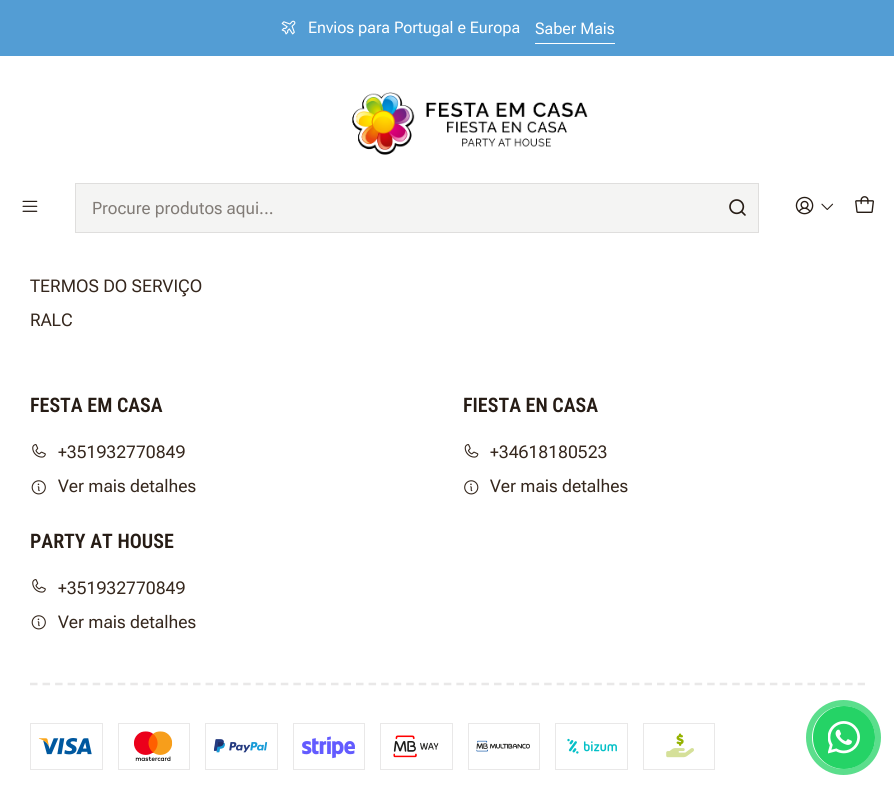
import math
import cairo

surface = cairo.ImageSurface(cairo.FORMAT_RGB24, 894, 788)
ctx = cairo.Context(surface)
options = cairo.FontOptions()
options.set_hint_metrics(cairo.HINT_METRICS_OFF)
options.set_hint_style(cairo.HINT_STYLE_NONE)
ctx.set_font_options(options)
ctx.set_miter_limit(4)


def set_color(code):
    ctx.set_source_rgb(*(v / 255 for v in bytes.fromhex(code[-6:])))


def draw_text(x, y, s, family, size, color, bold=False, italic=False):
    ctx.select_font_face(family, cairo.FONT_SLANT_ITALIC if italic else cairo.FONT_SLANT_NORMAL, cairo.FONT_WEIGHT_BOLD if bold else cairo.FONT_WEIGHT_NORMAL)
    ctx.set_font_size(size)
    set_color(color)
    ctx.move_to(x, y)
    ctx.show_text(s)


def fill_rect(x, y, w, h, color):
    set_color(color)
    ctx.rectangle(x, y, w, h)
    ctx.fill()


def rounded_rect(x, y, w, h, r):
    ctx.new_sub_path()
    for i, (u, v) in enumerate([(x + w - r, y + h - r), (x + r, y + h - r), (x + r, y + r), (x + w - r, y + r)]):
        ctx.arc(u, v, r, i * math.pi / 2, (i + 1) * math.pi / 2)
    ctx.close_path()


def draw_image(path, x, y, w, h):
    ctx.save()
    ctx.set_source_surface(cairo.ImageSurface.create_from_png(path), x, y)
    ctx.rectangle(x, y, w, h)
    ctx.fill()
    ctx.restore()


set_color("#ffffff")
ctx.paint()
fill_rect(0, 0, 894, 56, "#539dd4")
draw_image("assets/img1.png", 281, 20, 15, 15)
draw_text(308, 33, "Envios para Portugal e Europa", "Roboto Flex", 16, "#ffffff")
fill_rect(535, 43, 80, 1, "#ffffff")
draw_text(535, 34, "Saber Mais", "Roboto Flex", 16, "#ffffff")
draw_image("assets/img2.png", 352, 92, 236, 63)
draw_image("assets/img3.png", 22, 200, 16, 12)
set_color("#f4f4f3")
ctx.rectangle(75.5, 183.5, 683, 49)
ctx.fill_preserve()
set_color("#dfdedd")
ctx.set_line_width(1)
ctx.stroke()
draw_text(92, 214, "Procure produtos aqui...", "Roboto Flex", 17, "#817b76")
draw_image("assets/img4.png", 729, 199, 17, 17)
draw_image("assets/img5.png", 795, 196, 19, 19)
draw_image("assets/img6.png", 821, 203, 13, 7)
draw_image("assets/img7.png", 855, 196, 19, 17)
draw_text(30, 292, "TERMOS DO SERVIÇO", "Roboto Flex", 17.5, "#35271d")
draw_text(30, 326, "RALC", "Roboto Flex", 17.5, "#35271d")
draw_text(30, 412, "FESTA EM CASA", "Roboto Condensed SemiBold", 20, "#261c15")
draw_image("assets/img8.png", 32, 444, 14, 14)
draw_text(58, 458, "+351932770849", "Roboto Flex", 17.5, "#35271d")
draw_image("assets/img9.png", 31, 480, 15, 15)
draw_text(58, 492, "Ver mais detalhes", "Roboto Flex", 17.5, "#35271d")
draw_text(463, 412, "FIESTA EN CASA", "Roboto Condensed SemiBold", 20, "#261c15")
draw_image("assets/img10.png", 464, 444, 15, 14)
draw_text(490, 458, "+34618180523", "Roboto Flex", 17.5, "#35271d")
draw_image("assets/img11.png", 464, 480, 15, 15)
draw_text(490, 492, "Ver mais detalhes", "Roboto Flex", 17.5, "#35271d")
draw_text(30, 548, "PARTY AT HOUSE", "Roboto Condensed SemiBold", 20, "#261c15")
draw_image("assets/img8.png", 32, 579, 14, 14)
draw_text(58, 594, "+351932770849", "Roboto Flex", 17.5, "#35271d")
draw_image("assets/img9.png", 31, 615, 15, 15)
draw_text(58, 628, "Ver mais detalhes", "Roboto Flex", 17.5, "#35271d")
ctx.new_path()
ctx.move_to(30, 684)
ctx.line_to(865, 684)
set_color("#e9e8e8")
ctx.set_line_width(2.5)
ctx.set_dash([7.5, 5.04])
ctx.stroke()
ctx.rectangle(30.5, 723.5, 72, 46)
ctx.set_line_width(1)
ctx.set_dash([])
ctx.stroke()
draw_image("assets/img12.png", 38, 738, 54, 17)
ctx.rectangle(118.5, 723.5, 71, 46)
ctx.stroke()
draw_image("assets/img13.png", 134, 731, 39, 30)
ctx.rectangle(205.5, 723.5, 72, 46)
ctx.stroke()
draw_image("assets/img14.png", 213, 739, 55, 14)
ctx.rectangle(293.5, 723.5, 71, 46)
ctx.stroke()
draw_image("assets/img15.png", 302, 736, 53, 23)
ctx.rectangle(380.5, 723.5, 72, 46)
ctx.stroke()
draw_image("assets/img16.png", 393, 735, 46, 23)
ctx.rectangle(468.5, 723.5, 71, 46)
ctx.stroke()
draw_image("assets/img17.png", 476, 740, 54, 12)
ctx.rectangle(555.5, 723.5, 72, 46)
ctx.stroke()
draw_image("assets/img18.png", 567, 738, 50, 16)
ctx.rectangle(643.5, 723.5, 71, 46)
ctx.stroke()
draw_image("assets/img19.png", 666, 733, 28, 25)
set_color("#25d366")
rounded_rect(813, 706, 62, 63, 31)
ctx.fill()
draw_image("assets/img20.png", 828, 721, 32, 33)
ctx.arc(843.5, 737.5, 34.5, 0, 2 * math.pi)
ctx.set_source_rgba(0.145, 0.827, 0.4, 0.75)
ctx.set_line_width(6)
ctx.stroke()
surface.write_to_png("output.png")
